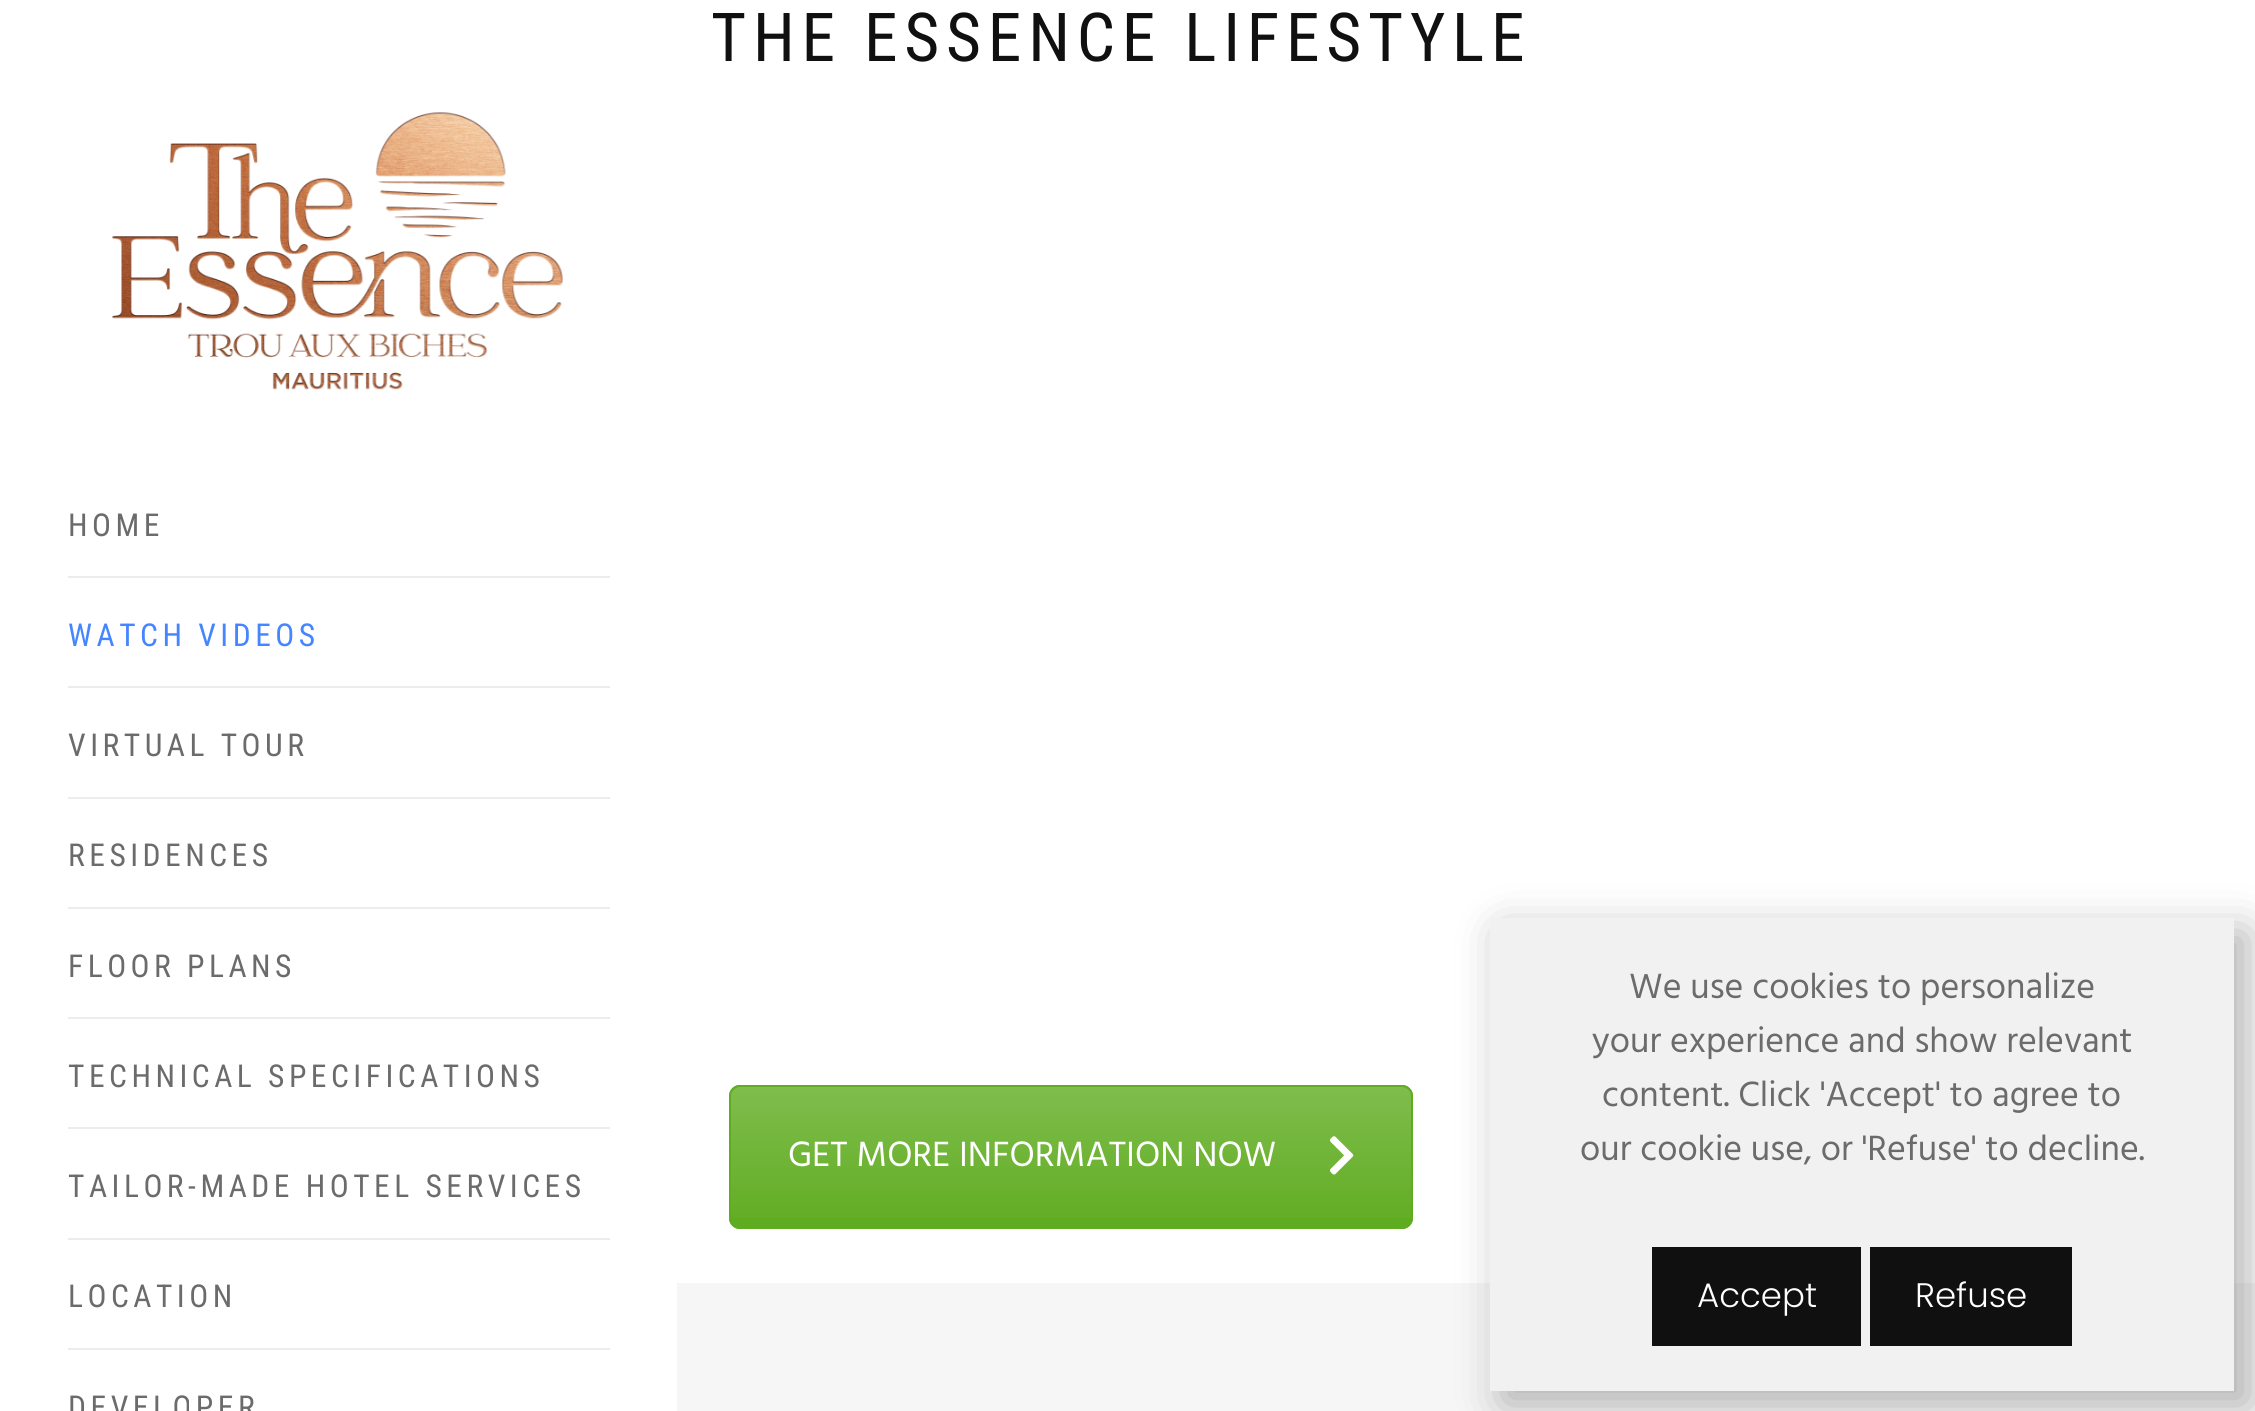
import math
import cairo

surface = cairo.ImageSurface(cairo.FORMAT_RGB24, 2255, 1411)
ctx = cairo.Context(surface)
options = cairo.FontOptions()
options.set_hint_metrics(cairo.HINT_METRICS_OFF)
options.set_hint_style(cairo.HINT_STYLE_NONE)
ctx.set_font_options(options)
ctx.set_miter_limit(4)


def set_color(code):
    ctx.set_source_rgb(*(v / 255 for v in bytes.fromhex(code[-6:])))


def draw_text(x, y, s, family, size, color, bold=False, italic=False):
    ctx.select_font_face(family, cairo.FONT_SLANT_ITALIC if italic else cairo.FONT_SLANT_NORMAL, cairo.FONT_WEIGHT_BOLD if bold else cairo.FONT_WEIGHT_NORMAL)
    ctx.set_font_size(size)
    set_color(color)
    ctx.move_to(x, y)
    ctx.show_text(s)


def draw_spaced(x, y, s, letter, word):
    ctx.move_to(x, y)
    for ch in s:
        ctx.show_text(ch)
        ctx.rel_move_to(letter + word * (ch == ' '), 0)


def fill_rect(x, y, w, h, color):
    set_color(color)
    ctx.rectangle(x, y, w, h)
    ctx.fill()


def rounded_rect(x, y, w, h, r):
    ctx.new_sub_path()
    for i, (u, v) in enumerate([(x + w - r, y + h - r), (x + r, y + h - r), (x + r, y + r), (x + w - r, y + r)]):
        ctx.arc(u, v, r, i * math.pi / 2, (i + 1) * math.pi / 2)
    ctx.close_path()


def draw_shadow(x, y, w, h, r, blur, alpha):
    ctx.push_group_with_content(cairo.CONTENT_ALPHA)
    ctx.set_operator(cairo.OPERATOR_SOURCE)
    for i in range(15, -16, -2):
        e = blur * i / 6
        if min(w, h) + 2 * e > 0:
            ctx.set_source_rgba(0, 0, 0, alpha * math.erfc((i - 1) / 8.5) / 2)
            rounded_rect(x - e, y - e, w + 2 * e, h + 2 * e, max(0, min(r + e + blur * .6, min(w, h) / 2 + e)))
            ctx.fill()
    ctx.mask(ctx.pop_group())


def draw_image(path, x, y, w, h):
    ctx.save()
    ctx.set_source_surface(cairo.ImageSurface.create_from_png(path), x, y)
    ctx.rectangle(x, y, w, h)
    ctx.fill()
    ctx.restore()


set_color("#ffffff")
ctx.paint()
draw_image("assets/img1.png", 112, 112, 451, 278)
fill_rect(68, 576, 542, 2, "#ececec")
ctx.select_font_face("Roboto Condensed")
ctx.set_font_size(31.5)
set_color("#6b6b6b")
draw_spaced(68, 536, "HOME", 4.5, 0)
fill_rect(68, 686, 542, 2, "#ececec")
set_color("#4585ff")
draw_spaced(68, 646, "WATCH VIDEOS", 4.5, 0)
fill_rect(68, 797, 542, 2, "#ececec")
set_color("#6b6b6b")
draw_spaced(68, 756, "VIRTUAL TOUR", 4.5, 0)
fill_rect(68, 907, 542, 2, "#ececec")
set_color("#6b6b6b")
draw_spaced(68, 866, "RESIDENCES", 4.5, 0)
fill_rect(68, 1017, 542, 2, "#ececec")
set_color("#6b6b6b")
draw_spaced(68, 977, "FLOOR PLANS", 4.5, 0)
fill_rect(68, 1127, 542, 2, "#ececec")
set_color("#6b6b6b")
draw_spaced(68, 1087, "TECHNICAL SPECIFICATIONS", 4.5, 0)
fill_rect(68, 1238, 542, 2, "#ececec")
set_color("#6b6b6b")
draw_spaced(68, 1197, "TAILOR-MADE HOTEL SERVICES", 4.5, 0)
fill_rect(68, 1348, 542, 2, "#ececec")
set_color("#6b6b6b")
draw_spaced(68, 1307, "LOCATION", 4.5, 0)
draw_spaced(68, 1418, "DEVELOPER", 4.5, 0)
ctx.set_font_size(67.5)
set_color("#101010")
draw_spaced(711, 61, "THE ESSENCE LIFESTYLE", 6.75, 0)
set_color("#5fac20")
rounded_rect(729, 1085, 684, 144, 11)
ctx.fill()
ctx.save()
rounded_rect(729, 1085, 684, 144, 11)
ctx.clip()
gradient = cairo.LinearGradient(1071, 1087, 1071, 1226)
gradient.add_color_stop_rgba(0, 1, 1, 1, 0.2)
gradient.add_color_stop_rgba(1, 1, 1, 1, 0.01)
ctx.set_source(gradient)
ctx.rectangle(729, 1087, 684, 131)
ctx.fill()
ctx.restore()
rounded_rect(730, 1086, 682, 142, 10)
ctx.stroke()
draw_text(788, 1166, "GET MORE INFORMATION NOW", "Hind", 36, "#ffffff")
draw_image("assets/img2.png", 1329, 1136, 25, 39)
fill_rect(677, 1283, 1578, 128, "#f6f6f6")
set_color("#000000")
draw_shadow(1503, 932, 745, 472, 0, 22.5, 0.3)
fill_rect(1490, 918, 744, 473, "#f1f1f1")
draw_text(1629, 998, "We use cookies to personalize", "Hind", 36, "#6b6b6b")
draw_text(1592, 1052, "your experience and show relevant", "Hind", 36, "#6b6b6b")
draw_text(1602, 1106, "content. Click 'Accept' to agree to", "Hind", 36, "#6b6b6b")
draw_text(1580, 1160, "our cookie use, or 'Refuse' to decline.", "Hind", 36, "#6b6b6b")
fill_rect(1652, 1247, 209, 99, "#101010")
draw_text(1697, 1307, "Accept", "Poppins Light", 34, "#ffffff")
fill_rect(1870, 1247, 202, 99, "#101010")
draw_text(1915, 1307, "Refuse", "Poppins Light", 34, "#ffffff")
surface.write_to_png("output.png")
